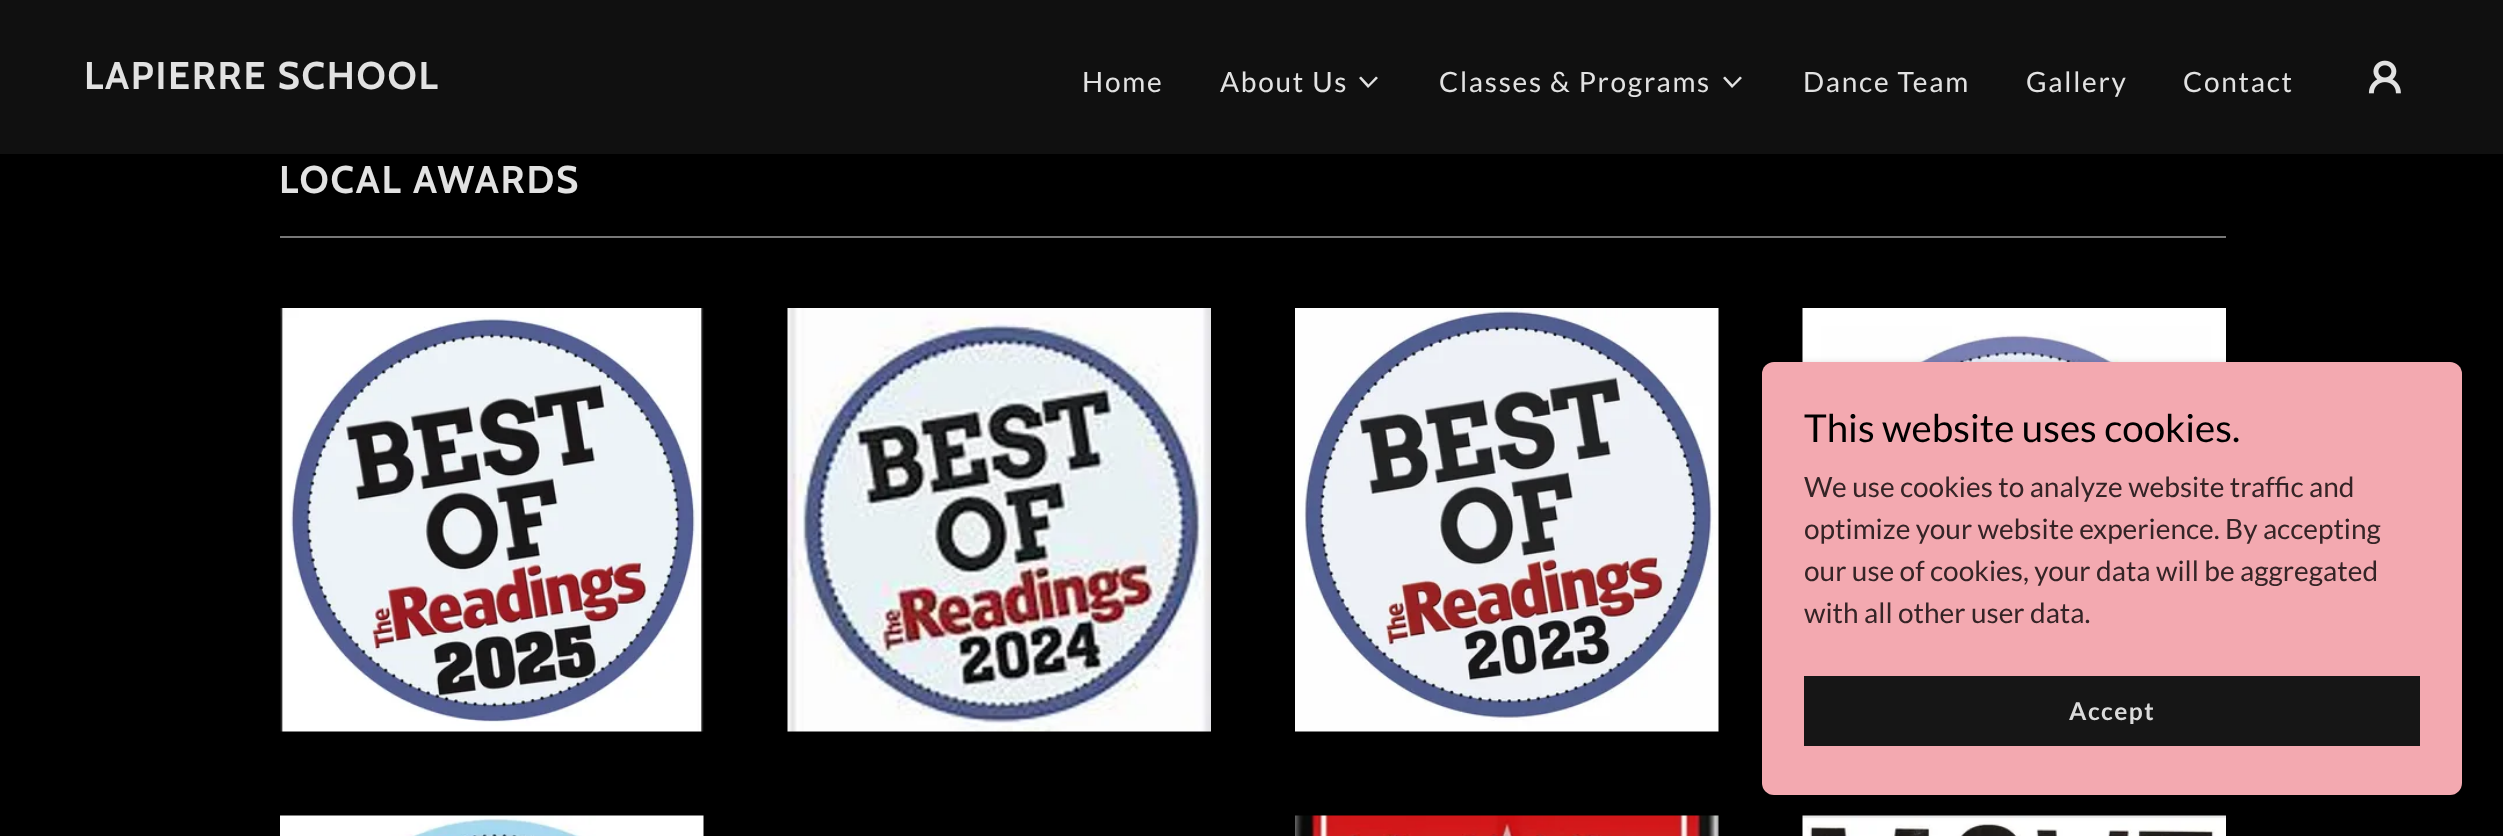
<!DOCTYPE html>
<meta charset="utf-8">
<style>body { margin: 0 } canvas { display: block }</style>
<canvas id="canvas" width="2503" height="836"></canvas>
<script type="module">
  const canvas = document.getElementById("canvas");
  const g = canvas.getContext("2d");
  g.miterLimit = 4;
  g.fontKerning = "normal";
  function drawText(s, x, y, [font, color]) {
    g.font = font;
    g.fillStyle = color;
    g.fillText(s, x, y);
  }
  function fillBox(x, y, w, h, color) {
    g.fillStyle = color;
    g.fillRect(x, y, w, h);
  }
  function fillRounded(x, y, w, h, r, color) {
    g.fillStyle = color;
    g.beginPath();
    g.roundRect(x, y, w, h, r);
    g.fill();
  }
  async function drawPicture(src, x, y, w, h) {
    const img = new Image();
    img.src = src;
    await img.decode();
    g.drawImage(img, x, y, w, h);
  }

  const s1 = ["bold 38.5px Cabin", "#E2E2E2"];
  const s2 = ["28px Lato", "#E2E2E2"];
  const s3 = ["38.5px Lato", "#000000"];
  const s4 = ["28px Lato", "#352426"];
  const s5 = ["bold 24.5px Lato", "#DBDBDB"];

  fillBox(0, 0, 2503, 836, "#000000");
  fillBox(0, 0, 2503, 154, "#101010");
  g.letterSpacing = "1.75px";
  drawText("LAPIERRE SCHOOL", 84, 89, s1);
  drawText("Home", 1082, 92, s2);
  drawText("About Us", 1220, 92, s2);
  g.beginPath();
  g.moveTo(1376, 76.5);
  g.lineTo(1368.5, 84.5);
  g.lineTo(1361, 76.5);
  g.lineTo(1359, 78);
  g.lineTo(1368, 88);
  g.lineTo(1378, 78);
  g.closePath();
  g.fill("evenodd");
  drawText("Classes & Programs", 1439, 92, s2);
  g.beginPath();
  g.moveTo(1740, 76.5);
  g.lineTo(1732.5, 84.5);
  g.lineTo(1725, 76.5);
  g.lineTo(1723, 78);
  g.lineTo(1732, 88);
  g.lineTo(1742, 78);
  g.closePath();
  g.fill("evenodd");
  drawText("Dance Team", 1803, 92, s2);
  drawText("Gallery", 2026, 92, s2);
  drawText("Contact", 2183, 92, s2);
  await drawPicture("pic1.png", 2368, 60, 33, 34);
  drawText("LOCAL AWARDS", 279, 193, s1);
  fillBox(280, 236, 1946, 2, "#777777");
  await drawPicture("pic2.png", 280, 308, 424, 424);
  await drawPicture("pic3.png", 787, 308, 424, 424);
  await drawPicture("pic4.png", 1295, 308, 424, 424);
  await drawPicture("pic5.png", 1802, 308, 424, 54);
  await drawPicture("pic6.png", 280, 815, 424, 21);
  await drawPicture("pic7.png", 1295, 815, 424, 21);
  await drawPicture("pic8.png", 1802, 815, 424, 21);
  g.fillStyle = "rgba(0, 0, 0, 0.3)";
  g.filter = "blur(5px)";
  g.beginPath();
  g.roundRect(1762, 366, 700, 432, 12);
  g.fill();
  g.filter = "none";
  fillRounded(1762, 362, 700, 433, 12, "#F3A9B0");
  g.letterSpacing = "0px";
  drawText("This website uses cookies.", 1804, 442, s3);
  drawText("We use cookies to analyze website traffic and", 1804, 497, s4);
  drawText("optimize your website experience. By accepting", 1804, 539, s4);
  drawText("our use of cookies, your data will be aggregated", 1804, 581, s4);
  drawText("with all other user data.", 1804, 623, s4);
  fillBox(1804, 676, 616, 70, "#161616");
  g.letterSpacing = "1.5px";
  drawText("Accept", 2069, 720, s5);
</script>
